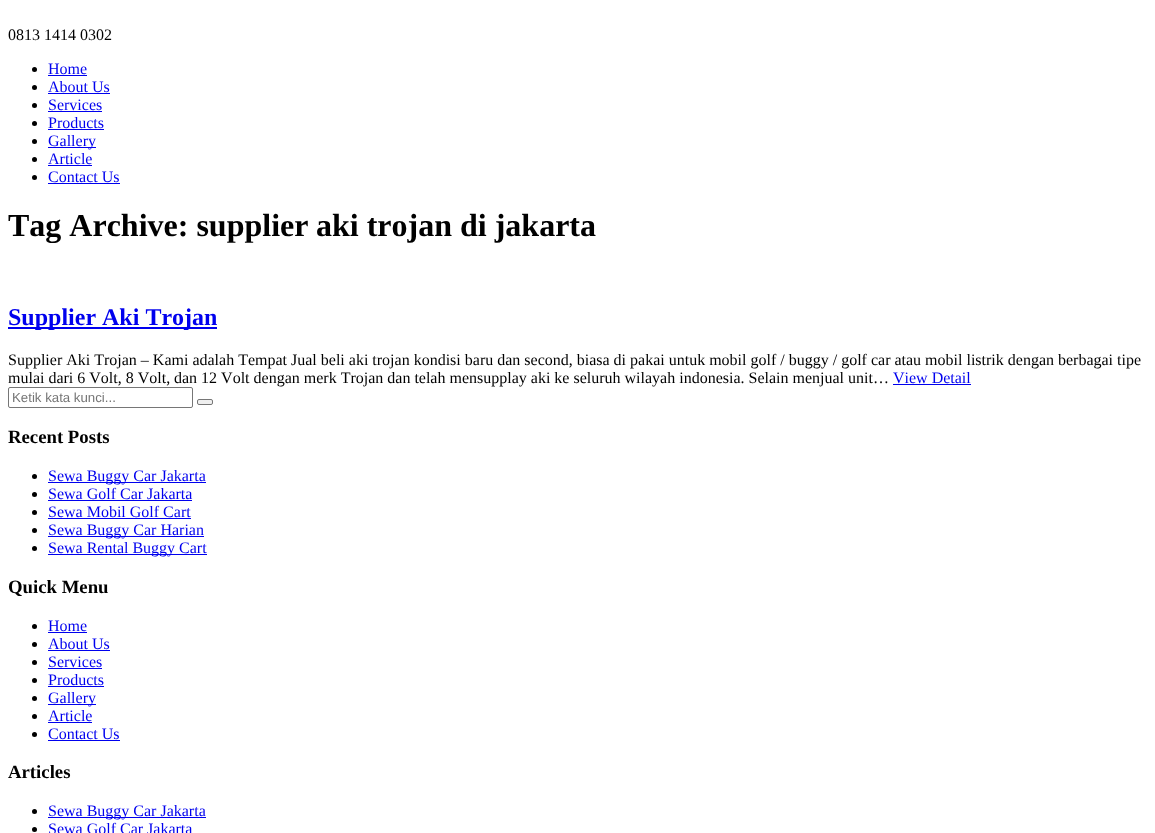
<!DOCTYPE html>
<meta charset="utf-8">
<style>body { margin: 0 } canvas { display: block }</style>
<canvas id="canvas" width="1155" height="833"></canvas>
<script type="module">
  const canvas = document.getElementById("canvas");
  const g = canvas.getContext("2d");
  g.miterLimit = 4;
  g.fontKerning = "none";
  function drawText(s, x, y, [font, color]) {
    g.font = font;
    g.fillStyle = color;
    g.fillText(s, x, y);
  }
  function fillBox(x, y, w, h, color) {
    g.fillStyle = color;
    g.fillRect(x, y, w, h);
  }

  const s1 = ["16px Liberation Serif", "#000000"];
  const s2 = ["16px Liberation Serif", "#0000EE"];
  const s3 = ["bold 32px Liberation Serif", "#000000"];
  const s4 = ["bold 24px Liberation Serif", "#0000EE"];
  const s5 = ["13.25px Liberation Sans", "#757575"];
  const s6 = ["bold 18.75px Liberation Serif", "#000000"];

  fillBox(0, 0, 1155, 833, "#FFFFFF");
  drawText("0813 1414 0302", 8, 40, s1);
  g.beginPath();
  g.arc(34.5, 69.5, 2.5, 0, Math.PI * 2);
  g.fill();
  drawText("Home", 48, 74, s2);
  fillBox(48, 75, 39, 1, "#0000EE");
  g.fillStyle = "#000000";
  g.beginPath();
  g.arc(34.5, 87.5, 2.5, 0, Math.PI * 2);
  g.fill();
  drawText("About Us", 48, 92, s2);
  fillBox(48, 93, 62, 1, "#0000EE");
  g.fillStyle = "#000000";
  g.beginPath();
  g.arc(34.5, 105.5, 2.5, 0, Math.PI * 2);
  g.fill();
  drawText("Services", 48, 110, s2);
  fillBox(48, 111, 54, 1, "#0000EE");
  g.fillStyle = "#000000";
  g.beginPath();
  g.arc(34.5, 123.5, 2.5, 0, Math.PI * 2);
  g.fill();
  drawText("Products", 48, 128, s2);
  fillBox(48, 129, 56, 1, "#0000EE");
  g.fillStyle = "#000000";
  g.beginPath();
  g.arc(34.5, 141.5, 2.5, 0, Math.PI * 2);
  g.fill();
  fillBox(48, 147, 48, 1, "#0000EE");
  drawText("Gallery", 48, 146, s2);
  g.fillStyle = "#000000";
  g.beginPath();
  g.arc(34.5, 159.5, 2.5, 0, Math.PI * 2);
  g.fill();
  drawText("Article", 48, 164, s2);
  fillBox(48, 165, 44, 1, "#0000EE");
  g.fillStyle = "#000000";
  g.beginPath();
  g.arc(34.5, 177.5, 2.5, 0, Math.PI * 2);
  g.fill();
  drawText("Contact Us", 48, 182, s2);
  fillBox(48, 183, 72, 1, "#0000EE");
  drawText("Tag Archive: supplier", 8, 236, s3);
  drawText("aki trojan di jakarta", 316, 236, s3);
  fillBox(8, 327, 209, 2, "#0000EE");
  drawText("Supplier Aki Trojan", 8, 325, s4);
  drawText("Supplier Aki Trojan – Kami adalah Tempat Jual beli aki trojan kondisi baru dan second, biasa di pakai untuk mobil golf / buggy / golf car atau mobil listrik dengan berbagai tipe", 8, 365, s1);
  drawText("mulai dari 6 Volt, 8 Volt,", 8, 383, s1);
  drawText("dan 12 Volt dengan merk Trojan dan telah mensupplay aki ke seluruh wilayah indonesia. Selain menjual unit…", 174, 383, s1);
  drawText("View Detail", 893, 383, s2);
  fillBox(893, 384, 78, 1, "#0000EE");
  g.beginPath();
  g.roundRect(8.5, 387.5, 184, 20, 1.5);
  g.strokeStyle = "#767676";
  g.stroke();
  drawText("Ketik kata kunci...", 12, 402, s5);
  g.fillStyle = "#EFEFEF";
  g.beginPath();
  g.roundRect(197.5, 399.5, 15, 5, 1.5);
  g.fill();
  g.stroke();
  drawText("Recent Posts", 8, 443, s6);
  g.beginPath();
  g.arc(34.5, 476.5, 2.5, 0, Math.PI * 2);
  g.fill();
  fillBox(48, 482, 158, 1, "#0000EE");
  drawText("Sewa Buggy Car Jakarta", 48, 481, s2);
  g.fillStyle = "#000000";
  g.beginPath();
  g.arc(34.5, 494.5, 2.5, 0, Math.PI * 2);
  g.fill();
  drawText("Sewa Golf Car Jakarta", 48, 499, s2);
  fillBox(48, 500, 144, 1, "#0000EE");
  g.fillStyle = "#000000";
  g.beginPath();
  g.arc(34.5, 512.5, 2.5, 0, Math.PI * 2);
  g.fill();
  drawText("Sewa Mobil Golf Cart", 48, 517, s2);
  fillBox(48, 518, 143, 1, "#0000EE");
  g.fillStyle = "#000000";
  g.beginPath();
  g.arc(34.5, 530.5, 2.5, 0, Math.PI * 2);
  g.fill();
  fillBox(48, 536, 156, 1, "#0000EE");
  drawText("Sewa Buggy Car Harian", 48, 535, s2);
  g.fillStyle = "#000000";
  g.beginPath();
  g.arc(34.5, 548.5, 2.5, 0, Math.PI * 2);
  g.fill();
  fillBox(48, 554, 159, 1, "#0000EE");
  drawText("Sewa Rental Buggy Cart", 48, 553, s2);
  drawText("Quick Menu", 8, 593, s6);
  g.beginPath();
  g.arc(34.5, 626.5, 2.5, 0, Math.PI * 2);
  g.fill();
  drawText("Home", 48, 631, s2);
  fillBox(48, 632, 39, 1, "#0000EE");
  g.fillStyle = "#000000";
  g.beginPath();
  g.arc(34.5, 644.5, 2.5, 0, Math.PI * 2);
  g.fill();
  drawText("About Us", 48, 649, s2);
  fillBox(48, 650, 62, 1, "#0000EE");
  g.fillStyle = "#000000";
  g.beginPath();
  g.arc(34.5, 662.5, 2.5, 0, Math.PI * 2);
  g.fill();
  drawText("Services", 48, 667, s2);
  fillBox(48, 668, 54, 1, "#0000EE");
  g.fillStyle = "#000000";
  g.beginPath();
  g.arc(34.5, 680.5, 2.5, 0, Math.PI * 2);
  g.fill();
  drawText("Products", 48, 685, s2);
  fillBox(48, 686, 56, 1, "#0000EE");
  g.fillStyle = "#000000";
  g.beginPath();
  g.arc(34.5, 698.5, 2.5, 0, Math.PI * 2);
  g.fill();
  fillBox(48, 704, 48, 1, "#0000EE");
  drawText("Gallery", 48, 703, s2);
  g.fillStyle = "#000000";
  g.beginPath();
  g.arc(34.5, 716.5, 2.5, 0, Math.PI * 2);
  g.fill();
  drawText("Article", 48, 721, s2);
  fillBox(48, 722, 44, 1, "#0000EE");
  g.fillStyle = "#000000";
  g.beginPath();
  g.arc(34.5, 734.5, 2.5, 0, Math.PI * 2);
  g.fill();
  drawText("Contact Us", 48, 739, s2);
  fillBox(48, 740, 72, 1, "#0000EE");
  drawText("Articles", 8, 778, s6);
  g.beginPath();
  g.arc(34.5, 811.5, 2.5, 0, Math.PI * 2);
  g.fill();
  fillBox(48, 817, 158, 1, "#0000EE");
  drawText("Sewa Buggy Car Jakarta", 48, 816, s2);
  g.fillStyle = "#000000";
  g.beginPath();
  g.arc(34.5, 829.5, 2.5, 0, Math.PI * 2);
  g.fill();
  drawText("Sewa Golf Car Jakarta", 48, 834, s2);
</script>
